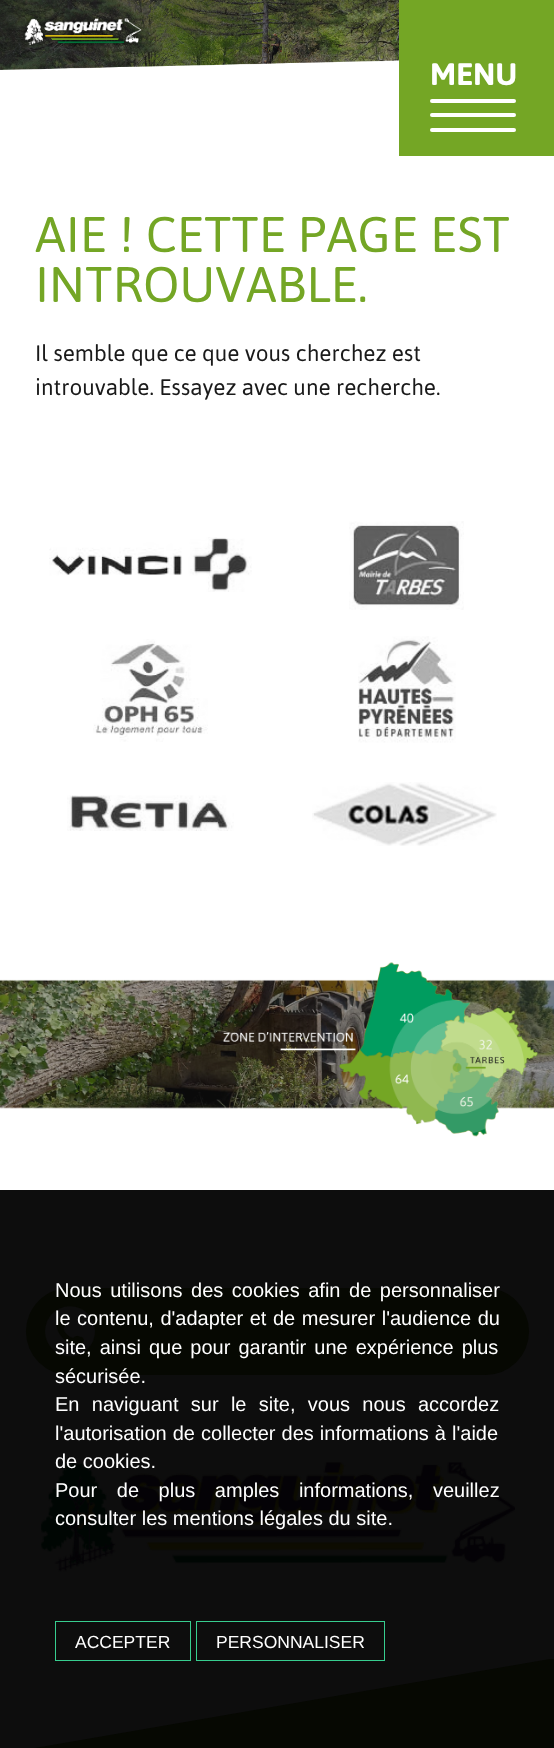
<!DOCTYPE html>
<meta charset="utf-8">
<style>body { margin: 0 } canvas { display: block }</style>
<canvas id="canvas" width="554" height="1748"></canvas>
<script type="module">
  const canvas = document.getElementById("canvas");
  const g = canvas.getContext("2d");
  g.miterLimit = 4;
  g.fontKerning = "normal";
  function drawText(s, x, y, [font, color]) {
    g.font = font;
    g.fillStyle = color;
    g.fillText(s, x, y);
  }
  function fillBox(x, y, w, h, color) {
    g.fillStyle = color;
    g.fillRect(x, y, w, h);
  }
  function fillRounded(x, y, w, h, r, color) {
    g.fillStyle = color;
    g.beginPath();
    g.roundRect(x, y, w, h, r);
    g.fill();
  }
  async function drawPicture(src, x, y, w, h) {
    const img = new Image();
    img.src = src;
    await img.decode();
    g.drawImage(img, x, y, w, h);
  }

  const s1 = ["bold 31px Asap", "#FFFFFF"];
  const s2 = ["50px Asap", "#74A625"];
  const s3 = ["22.5px Asap", "#1A1A1A"];
  const s4 = ["20px Liberation Sans", "#FFFFFF"];
  const s5 = ["17.5px Liberation Sans", "#FFFFFF"];

  fillBox(0, 0, 554, 1748, "#FFFFFF");
  fillBox(0, 1190, 554, 558, "#0D0D0D");
  await drawPicture("pic1.png", 0, 0, 399, 70);
  await drawPicture("pic2.png", 23, 17, 120, 29);
  fillBox(399, 0, 155, 156, "#74A625");
  drawText("MENU", 430, 85, s1);
  fillRounded(430, 99, 86, 4, 2, "#FFFFFF");
  fillRounded(430, 113, 86, 4, 2, "#FFFFFF");
  fillRounded(430, 128, 86, 4, 2, "#FFFFFF");
  drawText("AIE ! CETTE PAGE EST", 35, 252, s2);
  drawText("INTROUVABLE.", 35, 302, s2);
  drawText("Il semble que ce que vous cherchez est", 35, 361, s3);
  drawText("introuvable. Essayez avec une recherche.", 35, 395, s3);
  await drawPicture("pic3.png", 49, 537, 203, 55);
  await drawPicture("pic4.png", 349, 521, 115, 89);
  await drawPicture("pic5.png", 93, 639, 115, 103);
  await drawPicture("pic6.png", 358, 636, 98, 107);
  await drawPicture("pic7.png", 67, 795, 167, 36);
  await drawPicture("pic8.png", 312, 782, 185, 64);
  await drawPicture("pic9.png", 0, 962, 554, 175);
  fillRounded(26, 1288, 503, 87, 43.5, "#060802");
  await drawPicture("pic10.png", 45, 1306, 50, 51);
  await drawPicture("pic11.png", 41, 1462, 474, 110);
  g.beginPath();
  g.moveTo(0, 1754);
  g.lineTo(0, 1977);
  g.lineTo(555, 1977);
  g.lineTo(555, 1659);
  g.lineTo(550, 1659);
  g.closePath();
  g.fill();
  g.wordSpacing = "3px";
  drawText("Nous utilisons des cookies afin de personnaliser", 55, 1297, s4);
  g.wordSpacing = "1px";
  drawText("le contenu, d'adapter et de mesurer l'audience du", 55, 1325, s4);
  g.wordSpacing = "2.5px";
  drawText("site, ainsi que pour garantir une expérience plus", 55, 1354, s4);
  g.wordSpacing = "0px";
  drawText("sécurisée.", 55, 1383, s4);
  g.wordSpacing = "6.75px";
  drawText("En naviguant sur le site, vous nous accordez", 55, 1411, s4);
  g.wordSpacing = "0.5px";
  drawText("l'autorisation de collecter des informations à l'aide", 55, 1440, s4);
  g.wordSpacing = "0px";
  drawText("de cookies.", 55, 1468, s4);
  g.wordSpacing = "14px";
  drawText("Pour de plus amples informations, veuillez", 55, 1497, s4);
  g.wordSpacing = "0px";
  drawText("consulter les mentions légales du site.", 55, 1525, s4);
  g.strokeStyle = "#37CD8F";
  g.strokeRect(55.5, 1621.5, 135, 39);
  drawText("ACCEPTER", 75, 1648, s5);
  g.strokeRect(196.5, 1621.5, 188, 39);
  drawText("PERSONNALISER", 216, 1648, s5);
</script>
